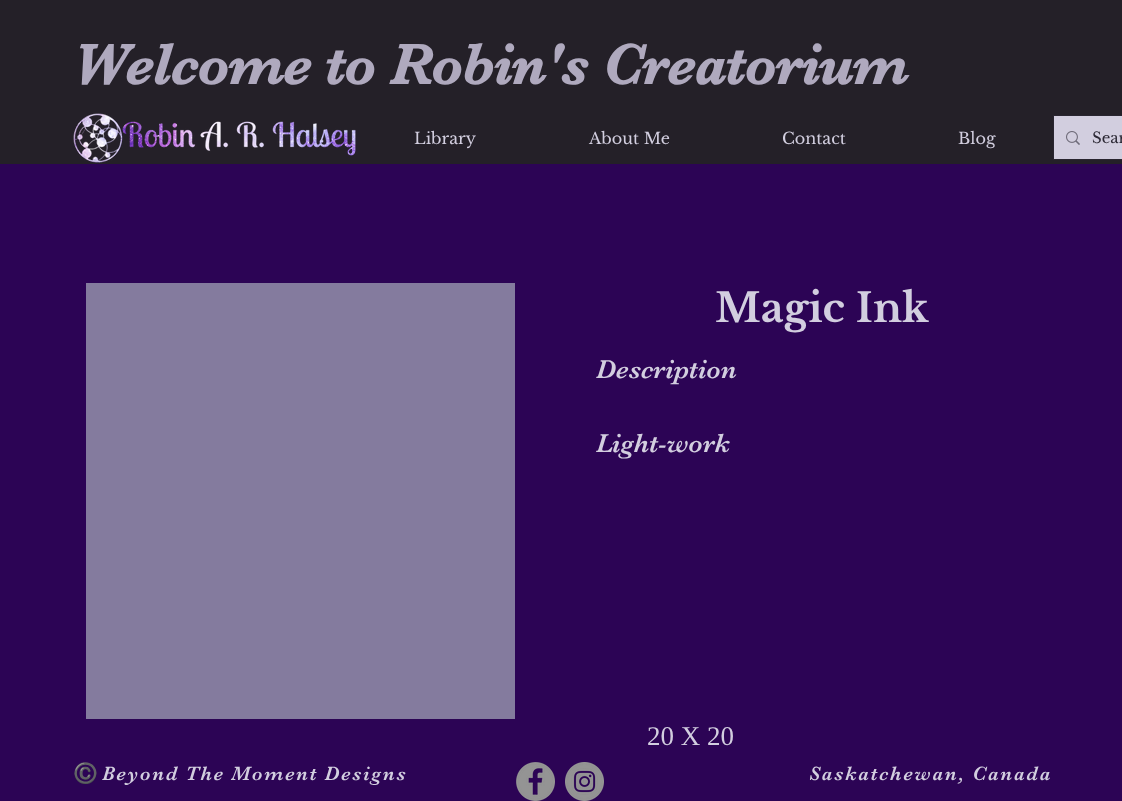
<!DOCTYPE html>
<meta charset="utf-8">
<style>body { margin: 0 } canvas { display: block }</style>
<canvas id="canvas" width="1122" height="801"></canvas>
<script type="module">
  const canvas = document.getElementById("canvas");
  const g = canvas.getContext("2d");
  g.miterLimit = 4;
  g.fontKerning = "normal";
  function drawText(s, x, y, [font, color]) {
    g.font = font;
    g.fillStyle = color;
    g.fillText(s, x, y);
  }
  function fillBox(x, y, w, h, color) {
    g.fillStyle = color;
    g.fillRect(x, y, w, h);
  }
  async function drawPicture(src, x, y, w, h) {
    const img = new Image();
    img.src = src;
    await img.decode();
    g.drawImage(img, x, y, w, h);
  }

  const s1 = ["bold 58px 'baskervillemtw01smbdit'", "#AFA9BE"];
  const s2 = ["16px Libre Baskerville", "#D2CEDF"];
  const s3 = ["15px Libre Baskerville", "#2C2935"];
  const s4 = ["bold 40px Libre Baskerville", "#D2CEDF"];
  const s5 = ["27px 'baskervillemtw01smbdit'", "#D2CEDF"];
  const s6 = ["27px Liberation Serif", "#D2CEDF"];
  const s7 = ["20px Noto Color Emoji", "#D2CEDF"];
  const s8 = ["20px 'baskervillemtw01smbdit'", "#D2CEDF"];

  fillBox(0, 0, 1122, 801, "#2C0455");
  fillBox(0, 0, 1122, 164, "#242028");
  drawText("Welcome to Robin's Creatorium", 73, 84, s1);
  await drawPicture("pic1.png", 73, 113, 283, 50);
  drawText("Library", 414, 144, s2);
  drawText("About Me", 589, 144, s2);
  drawText("Contact", 782, 144, s2);
  drawText("Blog", 958, 144, s2);
  g.strokeStyle = "#292530";
  g.strokeRect(1053.5, 115.5, 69, 44);
  fillBox(1054, 116, 68, 43, "#D2CEDF");
  await drawPicture("pic2.png", 1066, 131, 14, 14);
  drawText("Sear", 1092, 143, s3);
  fillBox(86, 283, 429, 436, "#847B9E");
  drawText("Magic Ink", 715, 322, s4);
  drawText("Description", 596, 378, s5);
  drawText("Light-work", 596, 452, s5);
  drawText("20 X 20", 647, 745, s6);
  g.letterSpacing = "1.8px";
  drawText("©️", 73, 780, s7);
  g.wordSpacing = "-0.5px";
  drawText("Beyond The Moment Designs", 102, 780, s8);
  await drawPicture("pic3.png", 516, 762, 39, 39);
  await drawPicture("pic4.png", 565, 762, 39, 39);
  g.wordSpacing = "0px";
  drawText("Saskatchewan, Canada", 809, 780, s8);
</script>
